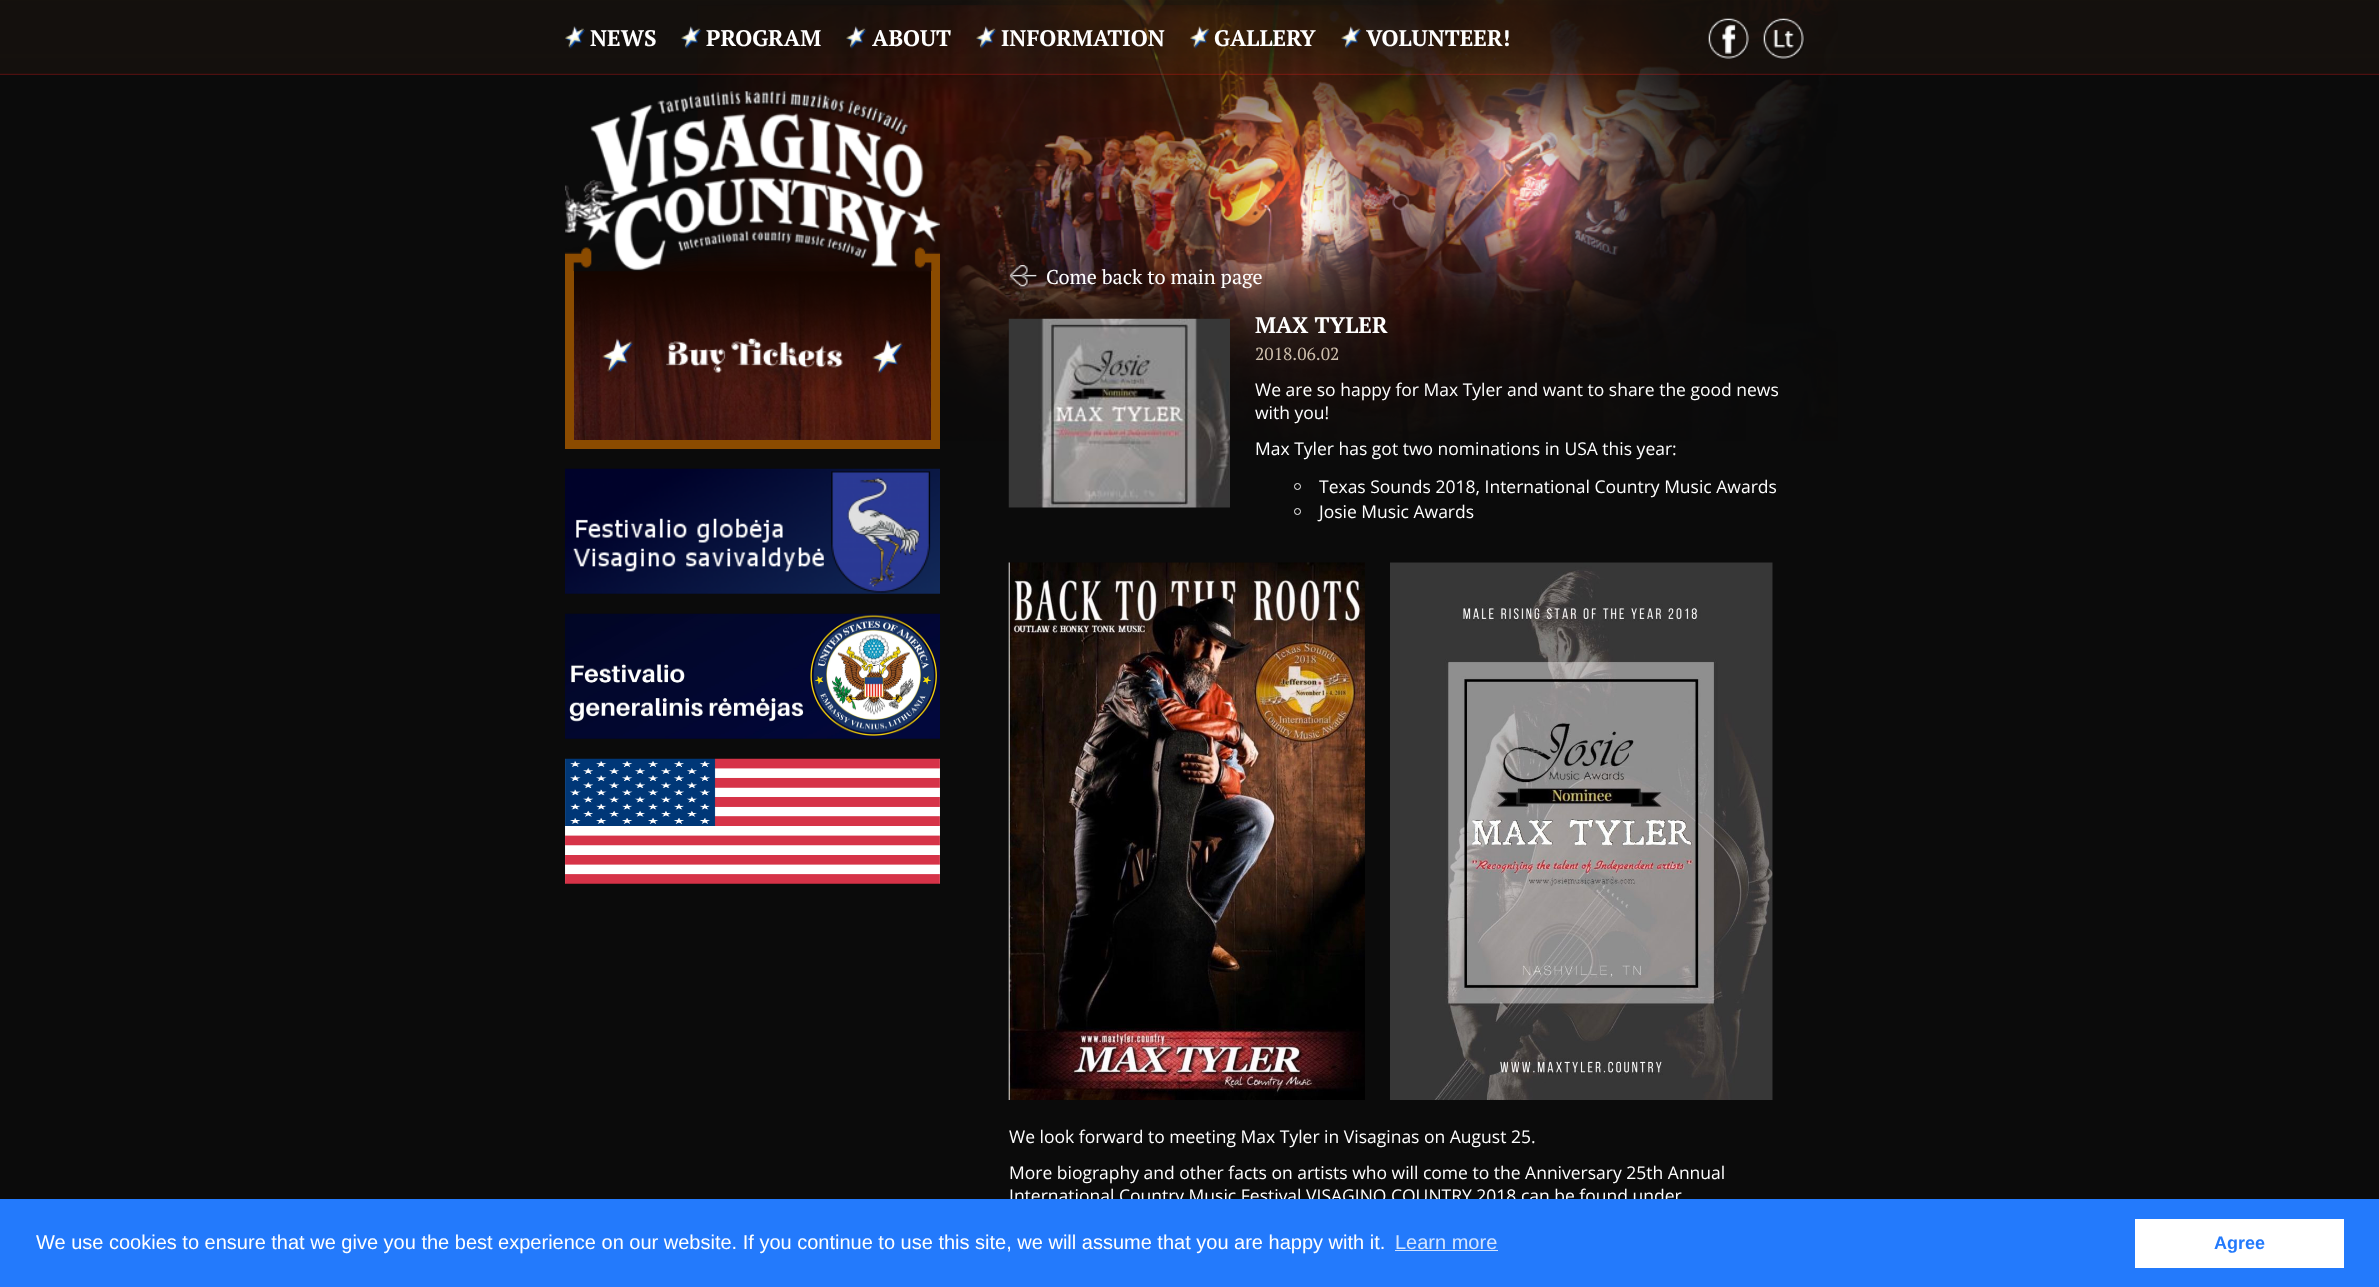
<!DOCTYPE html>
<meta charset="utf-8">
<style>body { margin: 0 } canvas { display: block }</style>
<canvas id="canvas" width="2379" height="1287"></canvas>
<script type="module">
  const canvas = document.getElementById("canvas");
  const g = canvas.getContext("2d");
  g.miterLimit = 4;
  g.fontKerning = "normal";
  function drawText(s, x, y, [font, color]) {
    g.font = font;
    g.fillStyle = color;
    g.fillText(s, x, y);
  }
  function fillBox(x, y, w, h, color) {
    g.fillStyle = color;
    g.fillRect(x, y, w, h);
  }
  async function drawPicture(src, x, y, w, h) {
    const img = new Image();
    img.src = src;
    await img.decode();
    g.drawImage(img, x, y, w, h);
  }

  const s1 = ["bold 22.5px PT Serif", "#FFFFFF"];
  const s2 = ["20px PT Serif", "#FFFFFF"];
  const s3 = ["17.5px PT Serif", "#CDBEAC"];
  const s4 = ["17.5px Open Sans", "#FFFFFF"];
  const s5 = ["20px Liberation Sans", "#FFFFFF"];
  const s6 = ["20px Liberation Sans", "#D3E4FE"];
  const s7 = ["bold 18px Liberation Sans", "#237AFC"];

  fillBox(0, 0, 2379, 1287, "#0B0B0B");
  await drawPicture("pic1.png", 697, 0, 1141, 441);
  await drawPicture("pic2.png", 0, 0, 2379, 75);
  await drawPicture("pic3.png", 565, 26, 20, 23);
  drawText("NEWS", 590, 46, s1);
  await drawPicture("pic4.png", 681, 26, 21, 23);
  drawText("PROGRAM", 706, 46, s1);
  await drawPicture("pic5.png", 846, 26, 21, 23);
  drawText("ABOUT", 872, 46, s1);
  await drawPicture("pic6.png", 976, 26, 21, 23);
  drawText("INFORMATION", 1001, 46, s1);
  await drawPicture("pic7.png", 1190, 26, 20, 23);
  drawText("GALLERY", 1214, 46, s1);
  await drawPicture("pic8.png", 1341, 26, 21, 23);
  drawText("VOLUNTEER!", 1366, 46, s1);
  await drawPicture("pic9.png", 1708, 18, 41, 41);
  await drawPicture("pic10.png", 1763, 18, 42, 42);
  await drawPicture("pic11.png", 565, 91, 375, 181);
  await drawPicture("pic12.png", 574, 271, 357, 169);
  fillBox(931, 271, 9, 169, "#8B4B00");
  fillBox(574, 440, 366, 9, "#8B4B00");
  fillBox(565, 271, 9, 178, "#8B4B00");
  await drawPicture("pic13.png", 602, 338, 301, 36);
  await drawPicture("pic14.png", 565, 468, 375, 126);
  await drawPicture("pic15.png", 565, 613, 375, 126);
  await drawPicture("pic16.png", 565, 758, 375, 126);
  await drawPicture("pic17.png", 1009, 265, 29, 23);
  drawText("Come back to main page", 1046, 284, s2);
  await drawPicture("pic18.png", 1008, 318, 222, 190);
  drawText("MAX TYLER", 1255, 333, s1);
  drawText("2018.06.02", 1255, 360, s3);
  drawText("We are so happy for Max Tyler and want to share the good news", 1255, 396, s4);
  drawText("with you!", 1255, 419, s4);
  drawText("Max Tyler has got two nominations in USA this year:", 1255, 455, s4);
  g.beginPath();
  g.arc(1297.5, 486.5, 3, 0, Math.PI * 2);
  g.strokeStyle = "#FFFFFF";
  g.stroke();
  drawText("Texas Sounds 2018, International Country Music Awards", 1319, 493, s4);
  g.beginPath();
  g.arc(1297.5, 511.5, 3, 0, Math.PI * 2);
  g.stroke();
  drawText("Josie Music Awards", 1319, 518, s4);
  await drawPicture("pic19.png", 1008, 562, 357, 538);
  await drawPicture("pic20.png", 1390, 562, 383, 538);
  drawText("We look forward to meeting Max Tyler in Visaginas on August 25.", 1009, 1143, s4);
  drawText("More biography and other facts on artists who will come to the Anniversary 25th Annual", 1009, 1179, s4);
  drawText("International Country Music Festival VISAGINO COUNTRY 2018 can be found under", 1009, 1202, s4);
  fillBox(0, 1199, 2379, 88, "#237AFC");
  drawText("We use cookies to ensure that we give you the best experience on our website. If you continue to use this site, we will assume that you are happy with it.", 36, 1249, s5);
  drawText("Learn more", 1395, 1249, s6);
  fillBox(1395, 1250, 103, 1, "#D3E4FE");
  fillBox(2135, 1219, 209, 49, "#FFFFFF");
  drawText("Agree", 2214, 1249, s7);
</script>
